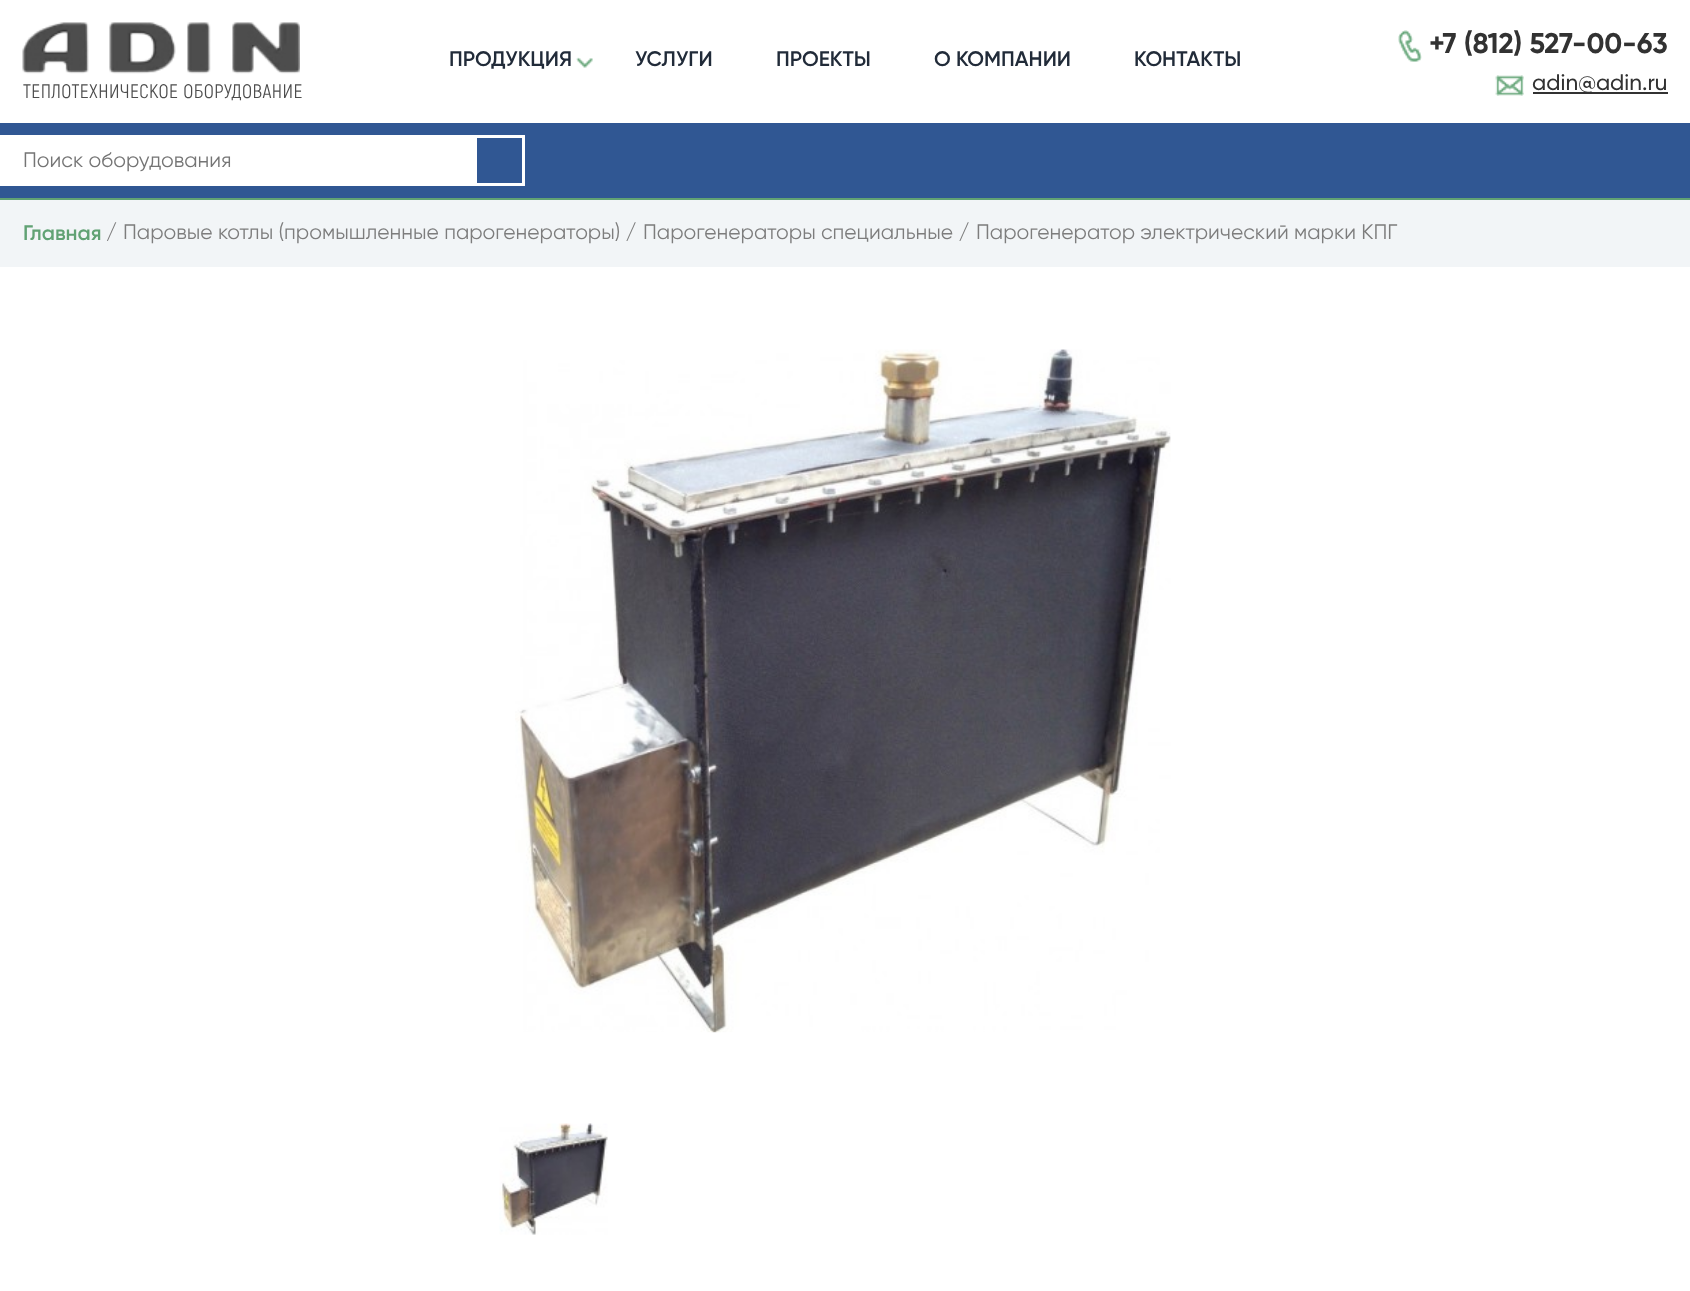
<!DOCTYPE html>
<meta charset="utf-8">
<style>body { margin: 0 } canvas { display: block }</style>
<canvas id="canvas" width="1690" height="1291"></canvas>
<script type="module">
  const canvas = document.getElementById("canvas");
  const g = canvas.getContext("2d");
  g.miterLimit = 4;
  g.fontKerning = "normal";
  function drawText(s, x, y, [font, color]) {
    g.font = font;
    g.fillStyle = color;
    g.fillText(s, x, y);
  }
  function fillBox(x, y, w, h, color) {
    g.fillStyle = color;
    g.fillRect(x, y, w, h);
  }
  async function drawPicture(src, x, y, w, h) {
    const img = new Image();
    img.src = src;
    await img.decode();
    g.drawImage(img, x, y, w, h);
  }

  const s1 = ["600 21px Gilroy", "#212B39"];
  const s2 = ["bold 28.5px Gilroy", "#323232"];
  const s3 = ["500 22.5px Gilroy", "#323232"];
  const s4 = ["19.5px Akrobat", "#4D4D4D"];
  const s5 = ["21px Gilroy", "#757575"];
  const s6 = ["600 21px Gilroy", "#61A274"];
  const s7 = ["21px Gilroy", "#7D7D7D"];

  fillBox(0, 0, 1690, 1291, "#FFFFFF");
  drawText("ПРОДУКЦИЯ", 449, 66, s1);
  await drawPicture("pic1.png", 576, 57, 17, 11);
  drawText("УСЛУГИ", 635, 66, s1);
  drawText("ПРОЕКТЫ", 776, 66, s1);
  drawText("О КОМПАНИИ", 934, 66, s1);
  drawText("КОНТАКТЫ", 1134, 66, s1);
  await drawPicture("pic2.png", 1398, 30, 24, 32);
  drawText("+7 (812) 527-00-63", 1429, 53, s2);
  await drawPicture("pic3.png", 1495, 75, 29, 21);
  fillBox(1533, 92, 135, 2, "#323232");
  drawText("adin@adin.ru", 1532, 90, s3);
  await drawPicture("pic4.png", 22, 22, 278, 52);
  g.letterSpacing = "0.45px";
  drawText("ТЕПЛОТЕХНИЧЕСКОЕ ОБОРУДОВАНИЕ", 23, 98, s4);
  fillBox(0, 123, 1690, 75, "#305793");
  fillBox(0, 198, 1690, 2, "#61A274");
  fillBox(0, 135, 474, 51, "#FFFFFF");
  g.letterSpacing = "0px";
  drawText("Поиск оборудования", 23, 167, s5);
  g.strokeStyle = "#FFFFFF";
  g.lineWidth = 3;
  g.strokeRect(475.5, 136.5, 48, 48);
  fillBox(0, 200, 1690, 67, "#F2F5F7");
  drawText("Главная", 23, 240, s6);
  drawText("/", 106, 239, s7);
  drawText("Паровые котлы (промышленные парогенераторы) /", 123, 239, s7);
  drawText("Парогенераторы специальные /", 643, 239, s7);
  drawText("Парогенератор электрический марки КПГ", 976, 239, s7);
  await drawPicture("pic5.png", 515, 349, 656, 684);
  await drawPicture("pic6.png", 499, 1123, 109, 112);
</script>
